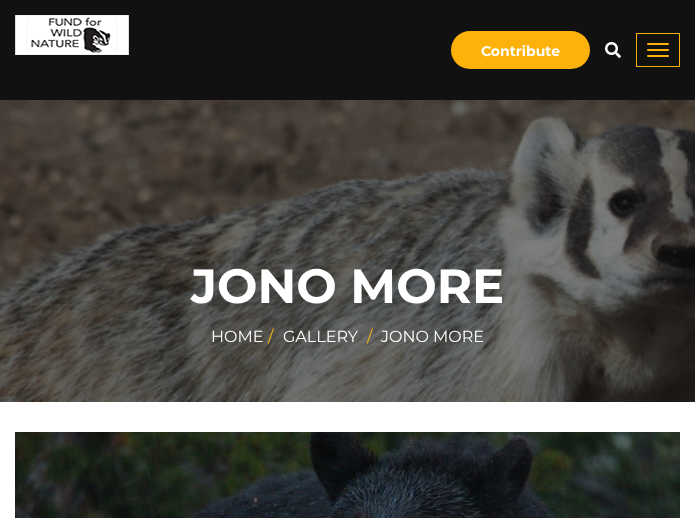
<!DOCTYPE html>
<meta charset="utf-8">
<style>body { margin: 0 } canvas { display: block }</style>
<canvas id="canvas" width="695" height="518"></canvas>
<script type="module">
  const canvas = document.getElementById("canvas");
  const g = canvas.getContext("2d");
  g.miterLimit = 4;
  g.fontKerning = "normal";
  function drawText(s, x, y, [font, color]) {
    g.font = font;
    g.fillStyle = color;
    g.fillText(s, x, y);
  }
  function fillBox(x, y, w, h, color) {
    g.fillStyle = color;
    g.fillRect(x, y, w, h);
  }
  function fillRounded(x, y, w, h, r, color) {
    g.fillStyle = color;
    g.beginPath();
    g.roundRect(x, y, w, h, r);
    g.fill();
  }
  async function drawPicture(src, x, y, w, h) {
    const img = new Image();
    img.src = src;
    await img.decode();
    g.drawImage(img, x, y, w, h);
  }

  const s1 = ["bold 14px Montserrat", "#FFFFFF"];
  const s2 = ["bold 48px Montserrat", "#FFFFFF"];
  const s3 = ["100 16px Montserrat", "#FFFFFF"];
  const s4 = ["100 16px Montserrat", "#FCB20B"];

  fillBox(0, 0, 695, 518, "#FFFFFF");
  await drawPicture("pic1.png", 0, 100, 695, 302);
  fillBox(0, 0, 695, 100, "#111111");
  await drawPicture("pic2.png", 15, 15, 114, 40);
  fillRounded(451, 31, 139, 38, 19, "#FCB20B");
  drawText("Contribute", 481, 56, s1);
  await drawPicture("pic3.png", 605, 42, 16, 16);
  g.strokeStyle = "#FCB20B";
  g.strokeRect(636.5, 33.5, 43, 33);
  fillRounded(647, 43, 22, 2, 1, "#FCB20B");
  fillRounded(647, 49, 22, 2, 1, "#FCB20B");
  fillRounded(647, 55, 22, 2, 1, "#FCB20B");
  drawText("JONO MORE", 191, 303, s2);
  drawText("HOME", 211, 342, s3);
  drawText("/", 268, 342, s4);
  drawText("GALLERY", 283, 342, s3);
  drawText("/", 367, 342, s4);
  drawText("JONO MORE", 381, 342, s3);
  await drawPicture("pic4.png", 15, 432, 665, 86);
</script>
